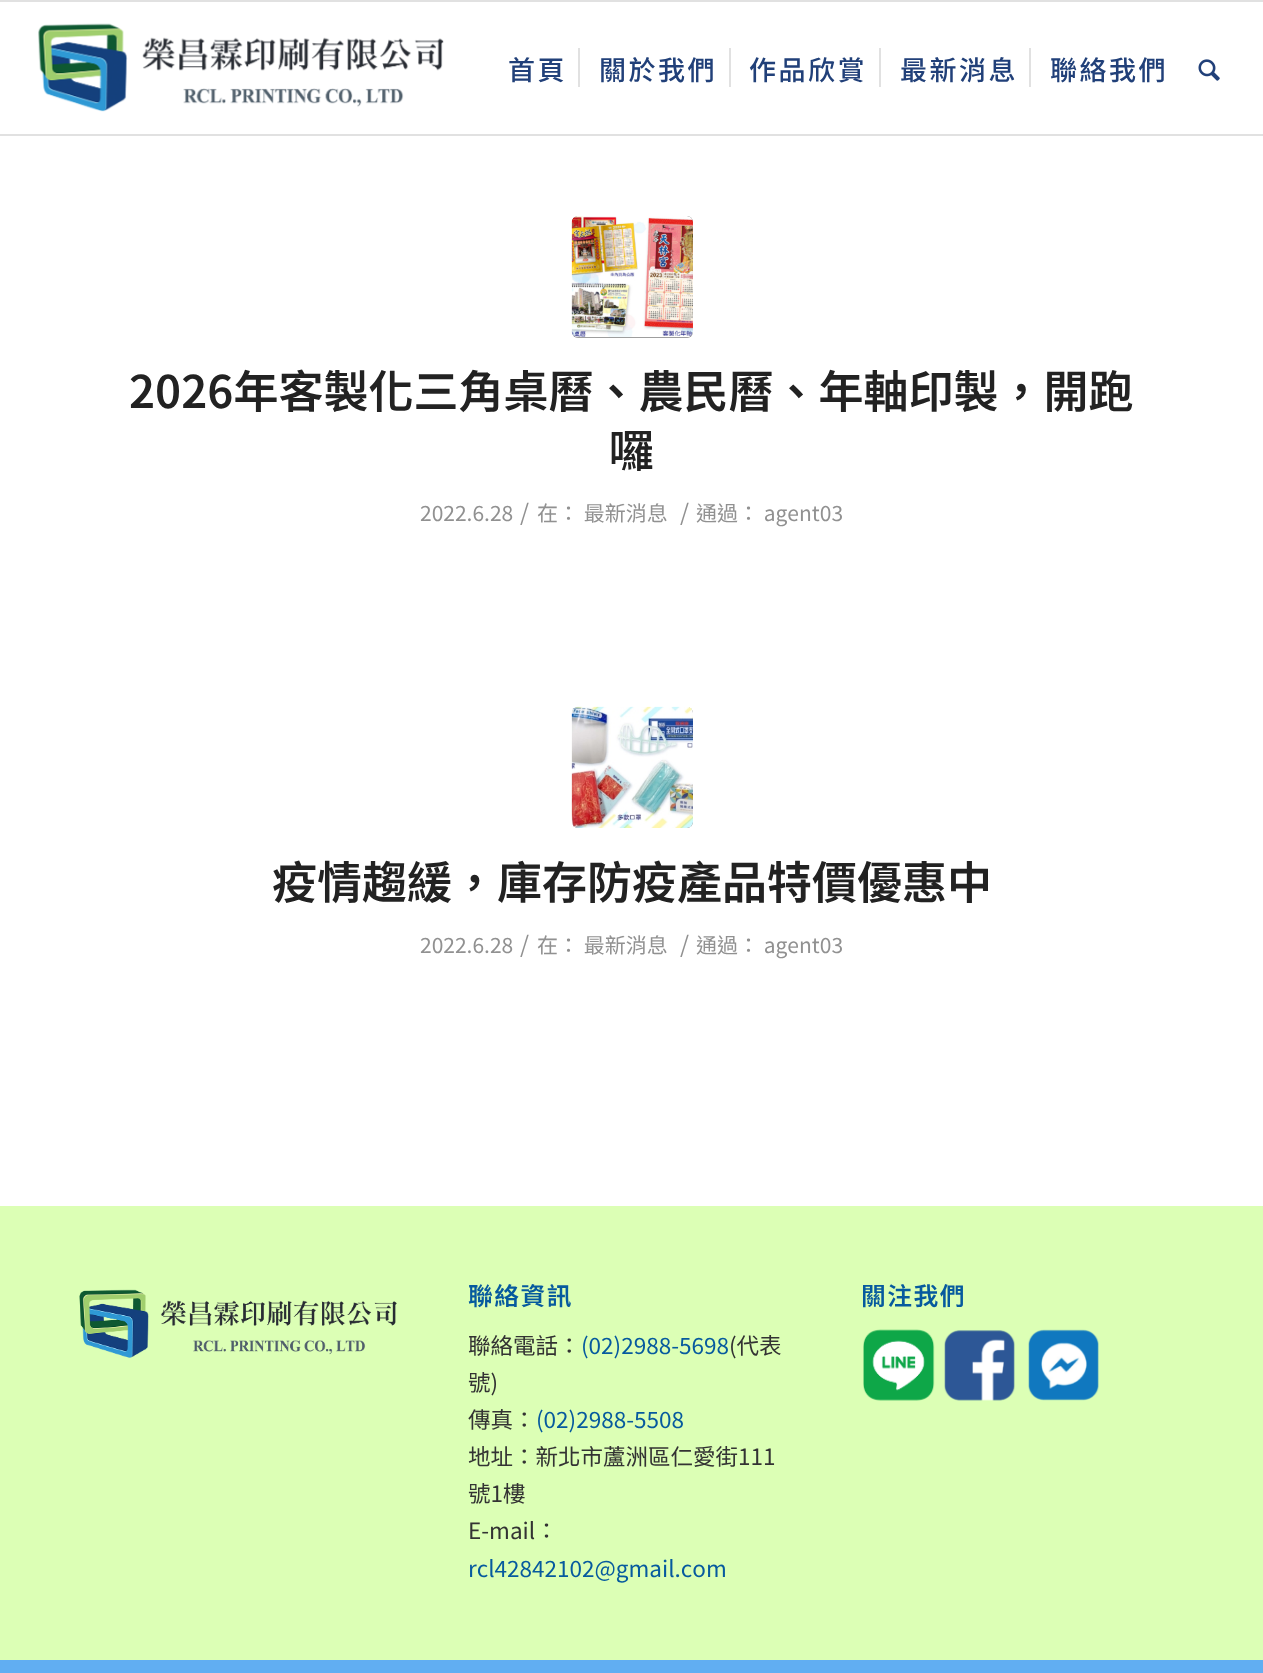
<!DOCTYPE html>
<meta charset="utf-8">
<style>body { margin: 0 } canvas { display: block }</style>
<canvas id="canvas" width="1263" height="1673"></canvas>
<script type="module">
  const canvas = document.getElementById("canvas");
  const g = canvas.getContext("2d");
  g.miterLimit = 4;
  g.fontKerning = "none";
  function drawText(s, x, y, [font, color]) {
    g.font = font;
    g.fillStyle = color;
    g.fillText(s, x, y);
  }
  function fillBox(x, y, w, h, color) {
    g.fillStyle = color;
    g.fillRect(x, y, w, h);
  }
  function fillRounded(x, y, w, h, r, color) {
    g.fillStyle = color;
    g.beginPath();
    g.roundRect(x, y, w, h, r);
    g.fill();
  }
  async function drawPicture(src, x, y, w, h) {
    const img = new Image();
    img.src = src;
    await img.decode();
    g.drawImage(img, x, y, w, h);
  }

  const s1 = ["500 27px Noto Sans TC", "#214079"];
  const s2 = ["600 45px Noto Sans TC", "#222222"];
  const s3 = ["21px Noto Sans TC", "#919191"];
  const s4 = ["23px Noto Sans TC", "#919191"];
  const s5 = ["600 24.75px Noto Sans TC", "#065A9E"];
  const s6 = ["22.5px Noto Sans TC", "#333333"];
  const s7 = ["22.5px Noto Sans TC", "#065A9E"];

  fillBox(0, 0, 1263, 1673, "#FFFFFF");
  fillBox(0, 0, 1263, 2, "#E1E1E1");
  fillBox(0, 134, 1263, 2, "#E1E1E1");
  await drawPicture("pic1.png", 38, 23, 406, 89);
  g.letterSpacing = "2.5px";
  drawText("首頁", 508, 80, s1);
  drawText("關於我們", 599, 80, s1);
  fillBox(578, 48, 2, 39, "#E1E1E1");
  drawText("作品欣賞", 749, 80, s1);
  fillBox(729, 48, 2, 39, "#E1E1E1");
  drawText("最新消息", 900, 80, s1);
  fillBox(879, 48, 2, 39, "#E1E1E1");
  drawText("聯絡我們", 1050, 80, s1);
  fillBox(1029, 48, 2, 39, "#E1E1E1");
  await drawPicture("pic2.png", 1198, 59, 22, 22);
  fillRounded(572, 216, 121, 122, 6, "#919191");
  await drawPicture("pic3.png", 571, 216, 122, 122);
  g.letterSpacing = "0px";
  drawText("2026年客製化三角桌曆、農民曆、年軸印製，開跑", 129, 408, s2);
  drawText("囉", 609, 467, s2);
  drawText("2022.6.28", 420, 521, s3);
  drawText("/", 520, 521, s4);
  drawText("在： 最新消息", 537, 521, s3);
  drawText("/", 680, 521, s4);
  drawText("通過： agent03", 696, 521, s3);
  fillRounded(572, 707, 121, 121, 6, "#919191");
  await drawPicture("pic4.png", 571, 706, 122, 122);
  drawText("疫情趨緩，庫存防疫產品特價優惠中", 272, 899, s2);
  drawText("2022.6.28", 420, 953, s3);
  drawText("/", 520, 953, s4);
  drawText("在： 最新消息", 537, 953, s3);
  drawText("/", 680, 953, s4);
  drawText("通過： agent03", 696, 953, s3);
  fillBox(0, 1206, 1263, 454, "#DCFFB5");
  await drawPicture("pic5.png", 79, 1289, 318, 69);
  g.letterSpacing = "1.5px";
  drawText("聯絡資訊", 468, 1305, s5);
  g.letterSpacing = "0px";
  drawText("聯絡電話：", 468, 1354, s6);
  drawText("(02)2988-5698", 581, 1354, s7);
  drawText("(代表", 729, 1354, s6);
  drawText("號)", 468, 1391, s6);
  drawText("傳真：", 468, 1428, s6);
  drawText("(02)2988-5508", 536, 1428, s7);
  drawText("地址：新北市蘆洲區仁愛街111", 468, 1465, s6);
  drawText("號1樓", 468, 1502, s6);
  drawText("E-mail：", 468, 1539, s6);
  drawText("rcl42842102@gmail.com", 468, 1577, s7);
  g.letterSpacing = "1.5px";
  drawText("關注我們", 861, 1305, s5);
  await drawPicture("pic6.png", 863, 1329, 72, 72);
  await drawPicture("pic7.png", 944, 1330, 71, 71);
  await drawPicture("pic8.png", 1028, 1329, 71, 72);
  fillBox(0, 1660, 1263, 13, "#61AEF2");
</script>
